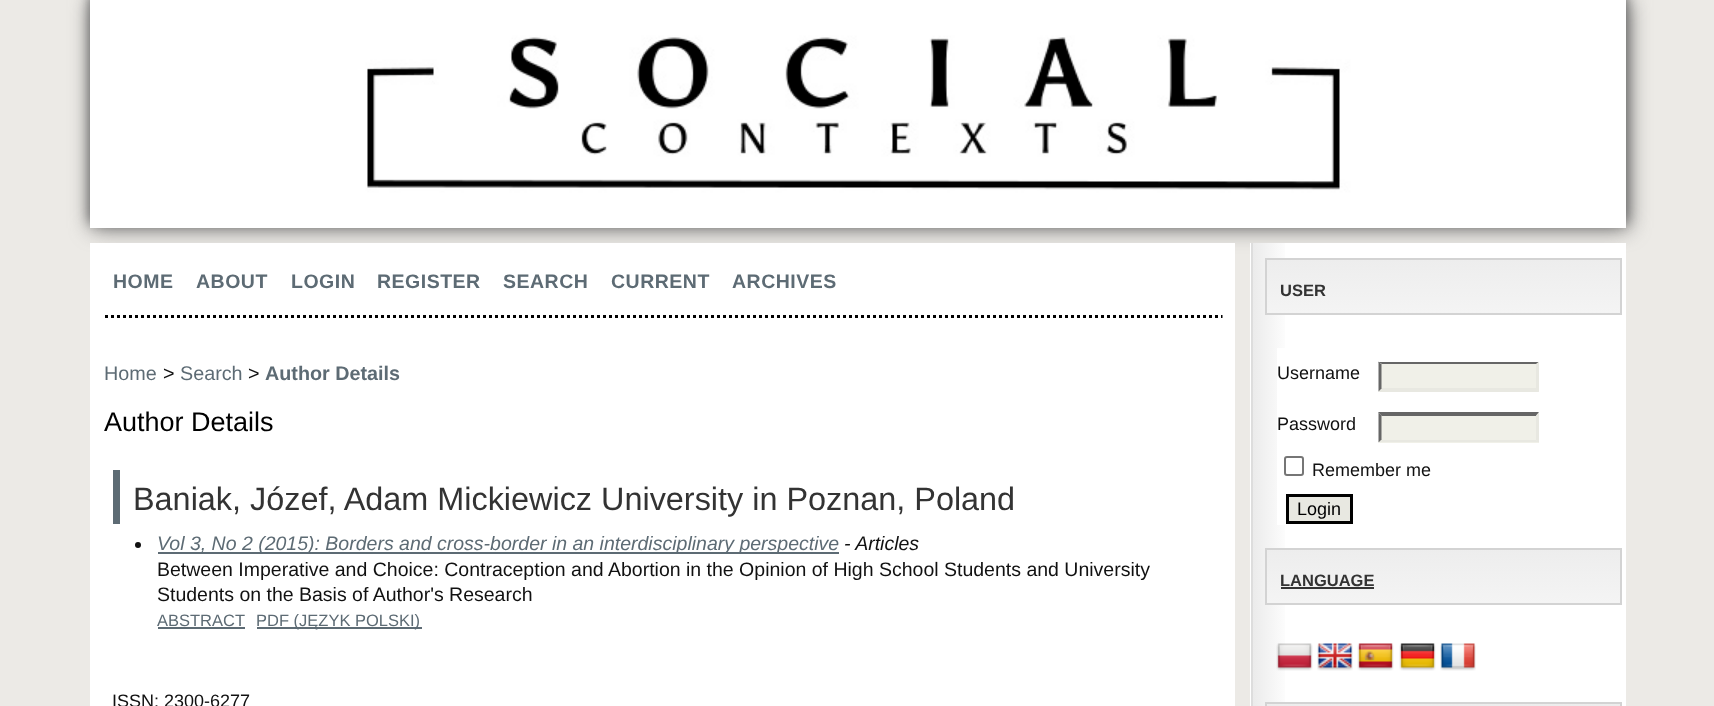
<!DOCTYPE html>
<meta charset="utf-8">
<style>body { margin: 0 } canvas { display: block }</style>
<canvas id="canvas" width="1714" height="706"></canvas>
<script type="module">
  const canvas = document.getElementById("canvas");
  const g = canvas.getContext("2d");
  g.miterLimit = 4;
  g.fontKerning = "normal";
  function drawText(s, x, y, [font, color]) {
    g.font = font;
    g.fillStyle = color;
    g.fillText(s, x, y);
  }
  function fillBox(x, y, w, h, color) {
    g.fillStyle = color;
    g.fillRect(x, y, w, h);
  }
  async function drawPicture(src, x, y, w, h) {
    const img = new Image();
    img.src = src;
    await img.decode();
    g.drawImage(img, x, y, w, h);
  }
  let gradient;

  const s1 = ["bold 19.5px Liberation Sans", "#5D6B74"];
  const s2 = ["19.75px Liberation Sans", "#5D6B74"];
  const s3 = ["19.75px Liberation Sans", "#111111"];
  const s4 = ["bold 19.75px Liberation Sans", "#5D6B74"];
  const s5 = ["27px Liberation Sans", "#000000"];
  const s6 = ["32.4px Liberation Sans", "#333333"];
  const s7 = ["italic 19.5px Liberation Sans", "#5D6B74"];
  const s8 = ["italic 19.5px Liberation Sans", "#111111"];
  const s9 = ["19.5px Liberation Sans", "#111111"];
  const s10 = ["16.5px Liberation Sans", "#5D6B74"];
  const s11 = ["18px Liberation Sans", "#111111"];
  const s12 = ["bold 16.5px Liberation Sans", "#333333"];
  const s13 = ["18px Liberation Sans", "#000000"];

  fillBox(0, 0, 1714, 706, "#ECEAE6");
  g.fillStyle = "#606060";
  g.filter = "blur(10.5px)";
  g.beginPath();
  g.rect(92, 0, 1536, 228);
  g.fill();
  g.filter = "none";
  g.fillStyle = "#707070";
  g.filter = "blur(6px)";
  g.beginPath();
  g.rect(90, -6, 1536, 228);
  g.fill();
  g.filter = "none";
  await drawPicture("pic1.png", 90, 0, 1536, 228);
  fillBox(90, 243, 1145, 463, "#FFFFFF");
  g.beginPath();
  g.moveTo(105, 316.5);
  g.lineTo(1222.5, 316.5);
  g.strokeStyle = "#000000";
  g.lineWidth = 3;
  g.setLineDash([3, 3]);
  g.stroke();
  g.letterSpacing = "0.5px";
  drawText("HOME", 113, 288, s1);
  drawText("ABOUT", 196, 288, s1);
  drawText("LOGIN", 291, 288, s1);
  drawText("REGISTER", 377, 288, s1);
  drawText("SEARCH", 503, 288, s1);
  drawText("CURRENT", 611, 288, s1);
  drawText("ARCHIVES", 732, 288, s1);
  g.letterSpacing = "0px";
  drawText("Home", 104, 380, s2);
  drawText(">", 163, 380, s3);
  drawText("Search", 180, 380, s2);
  drawText(">", 248, 380, s3);
  drawText("Author Details", 265, 380, s4);
  drawText("Author Details", 104, 431, s5);
  fillBox(113, 470, 7, 54, "#5D6B74");
  drawText("Baniak, Józef, Adam Mickiewicz University in Poznan, Poland", 133, 510, s6);
  g.fillStyle = "#111111";
  g.beginPath();
  g.arc(138, 545, 3, 0, Math.PI * 2);
  g.fill();
  fillBox(158, 552, 681, 2, "#5D6B74");
  drawText("Vol 3, No 2 (2015): Borders and cross-border in an interdisciplinary perspective", 157, 550, s7);
  drawText("- Articles", 844, 550, s8);
  drawText("Between Imperative and Choice: Contraception and Abortion in the Opinion of High School Students and University", 157, 576, s9);
  drawText("Students on the Basis of Author's Research", 157, 601, s9);
  drawText("ABSTRACT", 157, 626, s10);
  fillBox(158, 627, 87, 2, "#5D6B74");
  fillBox(257, 627, 165, 2, "#5D6B74");
  drawText("PDF (JĘZYK POLSKI)", 256, 626, s10);
  drawText("ISSN: 2300-6277", 112, 707, s11);
  fillBox(1250, 243, 376, 463, "#FFFFFF");
  gradient = g.createLinearGradient(1253, 388, 1622, 388);
  gradient.addColorStop(0, "#EBEBEB");
  gradient.addColorStop(0.1, "#FFFFFF");
  g.fillStyle = gradient;
  g.fillRect(1253, 243, 32, 290);
  fillBox(1251, 243, 2, 463, "#DDDDDD");
  gradient = g.createLinearGradient(1443, 260, 1443, 314);
  gradient.addColorStop(0, "#EDEDED");
  gradient.addColorStop(1, "#F4F4F4");
  g.fillStyle = gradient;
  g.fillRect(1267, 260, 353, 53);
  g.strokeStyle = "#D3D3D3";
  g.lineWidth = 2;
  g.setLineDash([]);
  g.strokeRect(1266, 259, 355, 55);
  drawText("USER", 1280, 296, s12);
  fillBox(1277, 348, 8, 177, "#FFFFFF");
  drawText("Username", 1277, 379, s11);
  fillBox(1379, 362, 160, 30, "#F0F0E8");
  g.fillStyle = "#666666";
  g.beginPath();
  g.moveTo(1378, 362);
  g.lineTo(1539, 362);
  g.lineTo(1536, 364);
  g.lineTo(1382, 364);
  g.closePath();
  g.fill();
  g.fillStyle = "#E8E8E1";
  g.beginPath();
  g.moveTo(1539, 361.5);
  g.lineTo(1539, 391.5);
  g.lineTo(1536, 388.5);
  g.lineTo(1536, 364.5);
  g.closePath();
  g.fill();
  g.beginPath();
  g.moveTo(1539, 392);
  g.lineTo(1378, 392);
  g.lineTo(1382, 388);
  g.lineTo(1536, 388);
  g.closePath();
  g.fill();
  g.fillStyle = "#666666";
  g.beginPath();
  g.moveTo(1378.5, 391.5);
  g.lineTo(1378.5, 361.5);
  g.lineTo(1381.5, 364.5);
  g.lineTo(1381.5, 388.5);
  g.closePath();
  g.fill();
  drawText("Password", 1277, 430, s11);
  fillBox(1379, 413, 160, 30, "#F0F0E8");
  g.fillStyle = "#666666";
  g.beginPath();
  g.moveTo(1378, 412);
  g.lineTo(1539, 412);
  g.lineTo(1536, 416);
  g.lineTo(1382, 416);
  g.closePath();
  g.fill();
  g.fillStyle = "#E8E8E1";
  g.beginPath();
  g.moveTo(1539, 412.5);
  g.lineTo(1539, 442.5);
  g.lineTo(1536, 439.5);
  g.lineTo(1536, 415.5);
  g.closePath();
  g.fill();
  g.beginPath();
  g.moveTo(1539, 442);
  g.lineTo(1378, 442);
  g.lineTo(1382, 440);
  g.lineTo(1536, 440);
  g.closePath();
  g.fill();
  g.fillStyle = "#666666";
  g.beginPath();
  g.moveTo(1378.5, 442.5);
  g.lineTo(1378.5, 412.5);
  g.lineTo(1381.5, 415.5);
  g.lineTo(1381.5, 439.5);
  g.closePath();
  g.fill();
  g.beginPath();
  g.roundRect(1285, 457, 18, 18, 2);
  g.strokeStyle = "#767676";
  g.stroke();
  drawText("Remember me", 1312, 476, s11);
  g.fillStyle = "#E8E8E1";
  g.beginPath();
  g.rect(1287.5, 495.5, 64, 27);
  g.fill();
  g.strokeStyle = "#000000";
  g.lineWidth = 3;
  g.stroke();
  drawText("Login", 1297, 515, s13);
  gradient = g.createLinearGradient(1253, 610, 1622, 610);
  gradient.addColorStop(0, "#EBEBEB");
  gradient.addColorStop(0.1, "#FFFFFF");
  g.fillStyle = gradient;
  g.fillRect(1253, 533, 32, 154);
  gradient = g.createLinearGradient(1443, 549, 1443, 603);
  gradient.addColorStop(0, "#EDEDED");
  gradient.addColorStop(1, "#F4F4F4");
  g.fillStyle = gradient;
  g.fillRect(1267, 550, 353, 53);
  g.strokeStyle = "#D3D3D3";
  g.lineWidth = 2;
  g.strokeRect(1266, 549, 355, 55);
  drawText("LANGUAGE", 1280, 586, s12);
  fillBox(1281, 587, 93, 2, "#333333");
  await drawPicture("pic2.png", 1276, 643, 37, 28);
  await drawPicture("pic3.png", 1317, 643, 36, 28);
  await drawPicture("pic4.png", 1357, 643, 37, 28);
  await drawPicture("pic5.png", 1399, 643, 37, 28);
  await drawPicture("pic6.png", 1440, 643, 36, 28);
  gradient = g.createLinearGradient(1253, 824, 1622, 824);
  gradient.addColorStop(0, "#EBEBEB");
  gradient.addColorStop(0.1, "#FFFFFF");
  g.fillStyle = gradient;
  g.fillRect(1253, 687, 32, 19);
  gradient = g.createLinearGradient(1443, 704, 1443, 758);
  gradient.addColorStop(0, "#EDEDED");
  gradient.addColorStop(1, "#F4F4F4");
  g.fillStyle = gradient;
  g.fillRect(1265, 704, 357, 2);
  g.strokeRect(1266, 703, 355, 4);
</script>
